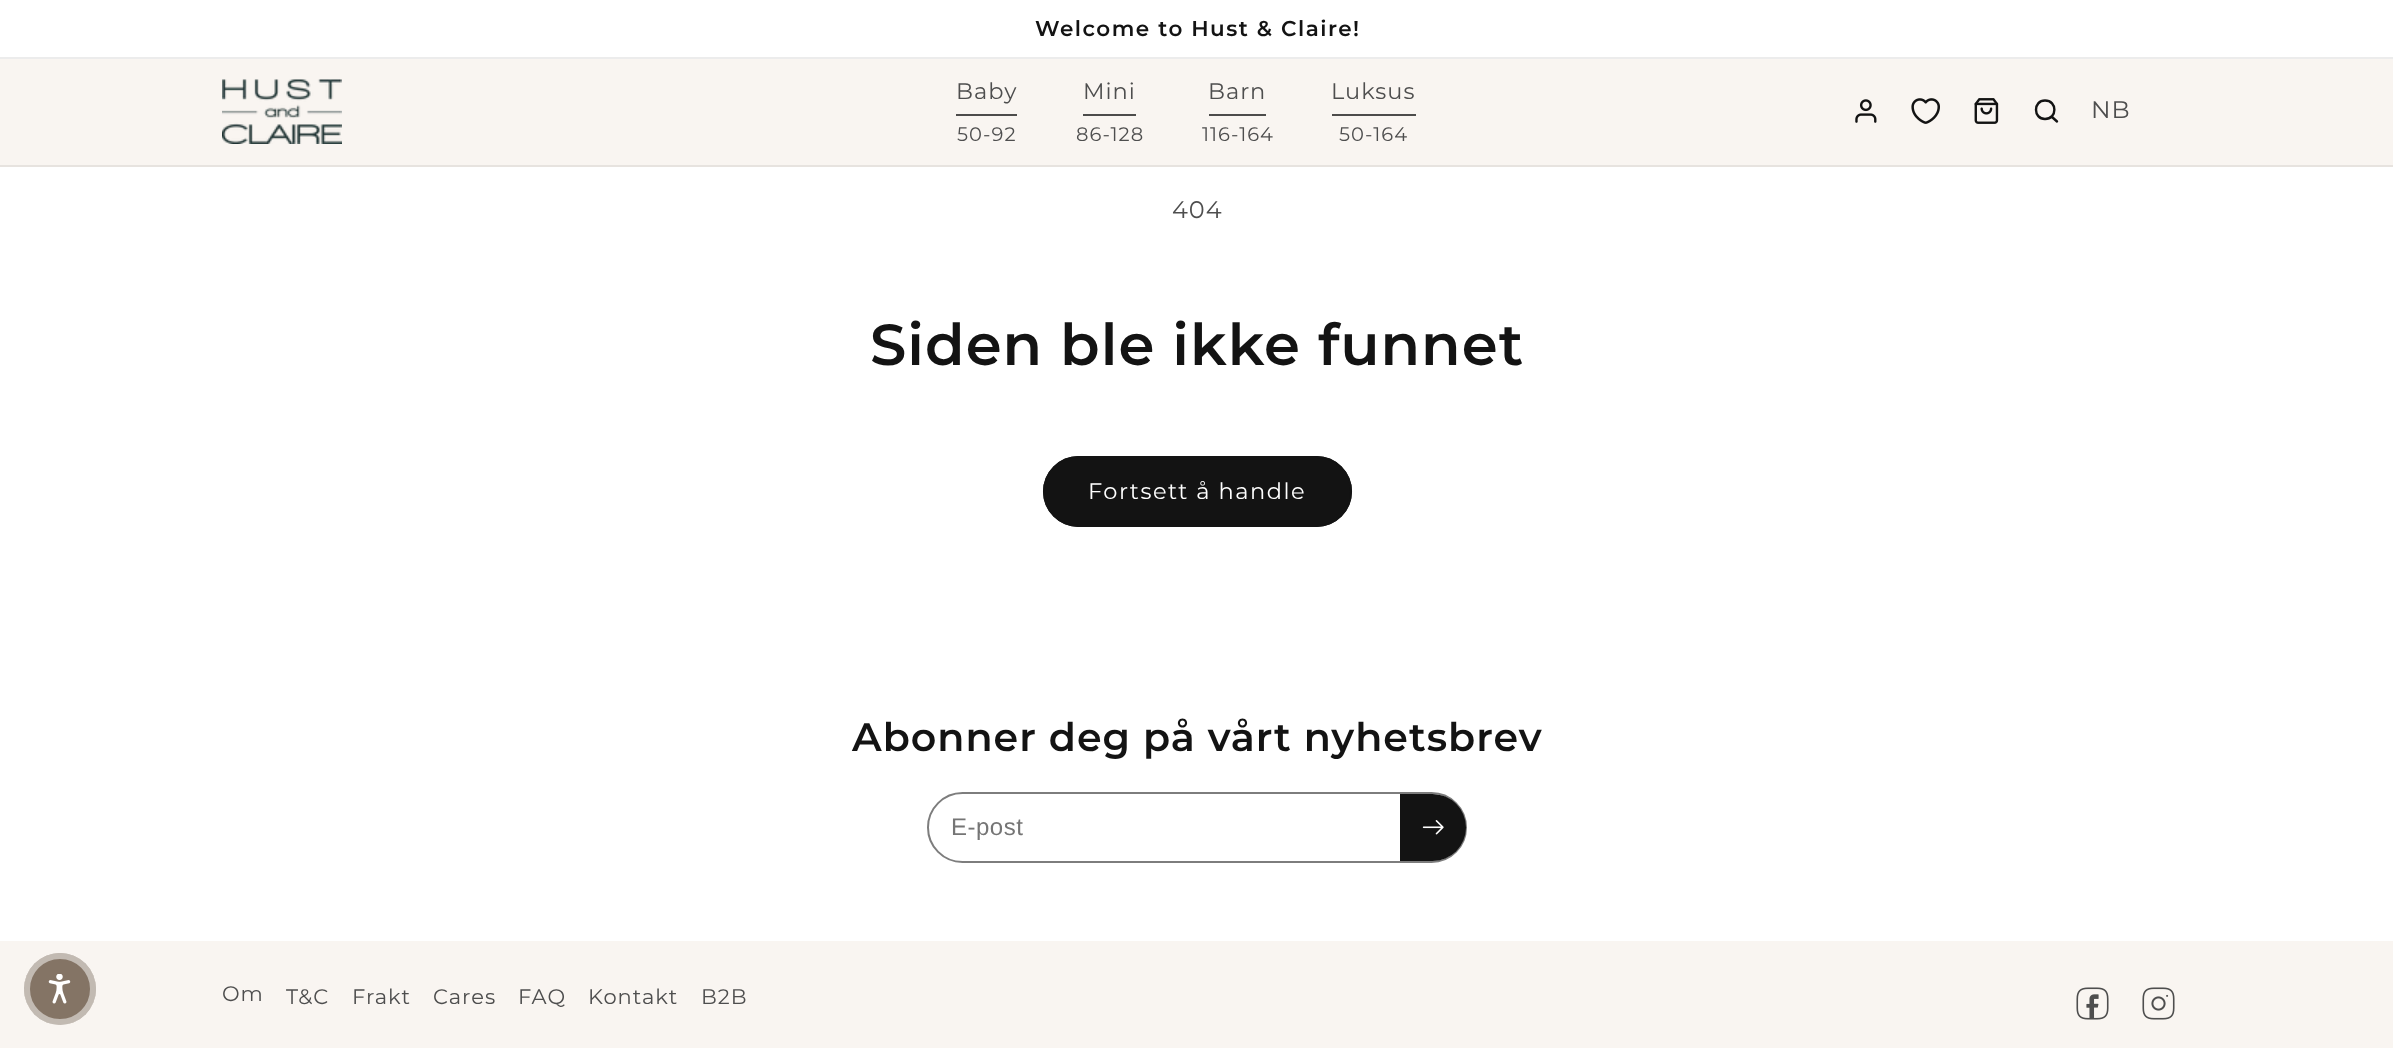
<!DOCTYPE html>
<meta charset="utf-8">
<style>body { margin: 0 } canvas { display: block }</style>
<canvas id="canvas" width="2393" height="1048"></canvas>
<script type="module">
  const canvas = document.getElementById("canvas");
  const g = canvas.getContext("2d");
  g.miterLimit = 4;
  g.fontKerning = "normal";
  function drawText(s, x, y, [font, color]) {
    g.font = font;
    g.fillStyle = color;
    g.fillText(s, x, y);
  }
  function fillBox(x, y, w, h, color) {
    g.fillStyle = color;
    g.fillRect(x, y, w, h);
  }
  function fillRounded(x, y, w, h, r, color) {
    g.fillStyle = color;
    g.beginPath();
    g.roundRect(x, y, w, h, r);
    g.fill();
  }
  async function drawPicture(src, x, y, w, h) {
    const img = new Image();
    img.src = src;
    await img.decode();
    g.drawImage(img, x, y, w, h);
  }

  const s1 = ["600 21.5px Montserrat", "#131313"];
  const s2 = ["22.5px Montserrat", "#4E4E4E"];
  const s3 = ["19.5px Montserrat", "#4E4E4E"];
  const s4 = ["24px Montserrat", "#4E4E4E"];
  const s5 = ["600 57.75px Montserrat", "#131313"];
  const s6 = ["22.5px Montserrat", "#FFFFFF"];
  const s7 = ["600 39.6px Montserrat", "#131313"];
  const s8 = ["24px Liberation Sans", "#757575"];
  const s9 = ["21px Montserrat", "#4E4E4E"];

  fillBox(0, 0, 2393, 1048, "#FFFFFF");
  fillBox(0, 57, 2393, 2, "#ECECEC");
  g.letterSpacing = "1.5px";
  drawText("Welcome to Hust & Claire!", 1035, 36, s1);
  fillBox(0, 59, 2393, 106, "#F9F5F1");
  fillBox(0, 165, 2393, 2, "#E7E3DF");
  await drawPicture("pic1.png", 222, 79, 120, 65);
  g.letterSpacing = "1px";
  drawText("Baby", 956, 99, s2);
  fillBox(956, 114, 61, 2, "#4D4C4B");
  drawText("50-92", 957, 141, s3);
  drawText("Mini", 1083, 99, s2);
  fillBox(1083, 114, 53, 2, "#4D4C4B");
  drawText("86-128", 1076, 141, s3);
  drawText("Barn", 1208, 99, s2);
  fillBox(1209, 114, 57, 2, "#4D4C4B");
  drawText("116-164", 1202, 141, s3);
  drawText("Luksus", 1331, 99, s2);
  fillBox(1332, 114, 84, 2, "#4D4C4B");
  drawText("50-164", 1339, 141, s3);
  await drawPicture("pic2.png", 1855, 99, 22, 24);
  await drawPicture("pic3.png", 1911, 98, 29, 26);
  await drawPicture("pic4.png", 1974, 98, 25, 26);
  g.beginPath();
  g.moveTo(2045, 119);
  g.bezierCurveTo(2057.5, 119, 2057.5, 100.5, 2045, 100.5);
  g.bezierCurveTo(2033, 100.5, 2033, 119, 2045, 119);
  g.closePath();
  g.moveTo(2057, 121.5);
  g.lineTo(2051.5, 116.5);
  g.strokeStyle = "#131313";
  g.lineWidth = 2.4;
  g.lineCap = "round";
  g.lineJoin = "round";
  g.stroke();
  drawText("NB", 2091, 118, s4);
  drawText("404", 1172, 218, s4);
  drawText("Siden ble ikke funnet", 870, 365, s5);
  fillRounded(1043, 456, 309, 71, 35.5, "#131313");
  g.beginPath();
  g.roundRect(1044, 457, 307, 69, 34.5);
  g.lineWidth = 2;
  g.lineJoin = "miter";
  g.stroke();
  g.letterSpacing = "1.5px";
  drawText("Fortsett å handle", 1088, 499, s6);
  g.letterSpacing = "1px";
  drawText("Abonner deg på vårt nyhetsbrev", 852, 751, s7);
  g.beginPath();
  g.roundRect(928, 793, 538, 69, 34.5);
  g.strokeStyle = "#7D7D7D";
  g.stroke();
  g.letterSpacing = "0.5px";
  drawText("E-post", 951, 835, s8);
  g.fillStyle = "#131313";
  g.beginPath();
  g.roundRect(1400, 794, 66, 67, [0, 33.5, 33.5, 0]);
  g.fill();
  await drawPicture("pic5.png", 1422, 820, 22, 15);
  fillBox(0, 941, 2393, 107, "#F9F5F1");
  g.fillStyle = "#847465";
  g.beginPath();
  g.arc(60, 989, 36, 0, Math.PI * 2);
  g.fill();
  g.beginPath();
  g.arc(60, 989, 33, 0, Math.PI * 2);
  g.strokeStyle = "rgba(255, 255, 255, 0.5)";
  g.lineWidth = 6;
  g.stroke();
  await drawPicture("pic6.png", 48, 974, 23, 30);
  g.letterSpacing = "1px";
  drawText("Om", 222, 1001, s9);
  drawText("T&C", 286, 1004, s9);
  drawText("Frakt", 352, 1004, s9);
  drawText("Cares", 433, 1004, s9);
  drawText("FAQ", 518, 1004, s9);
  drawText("Kontakt", 588, 1004, s9);
  drawText("B2B", 701, 1004, s9);
  await drawPicture("pic7.png", 2076, 987, 33, 33);
  await drawPicture("pic8.png", 2142, 987, 33, 33);
</script>
